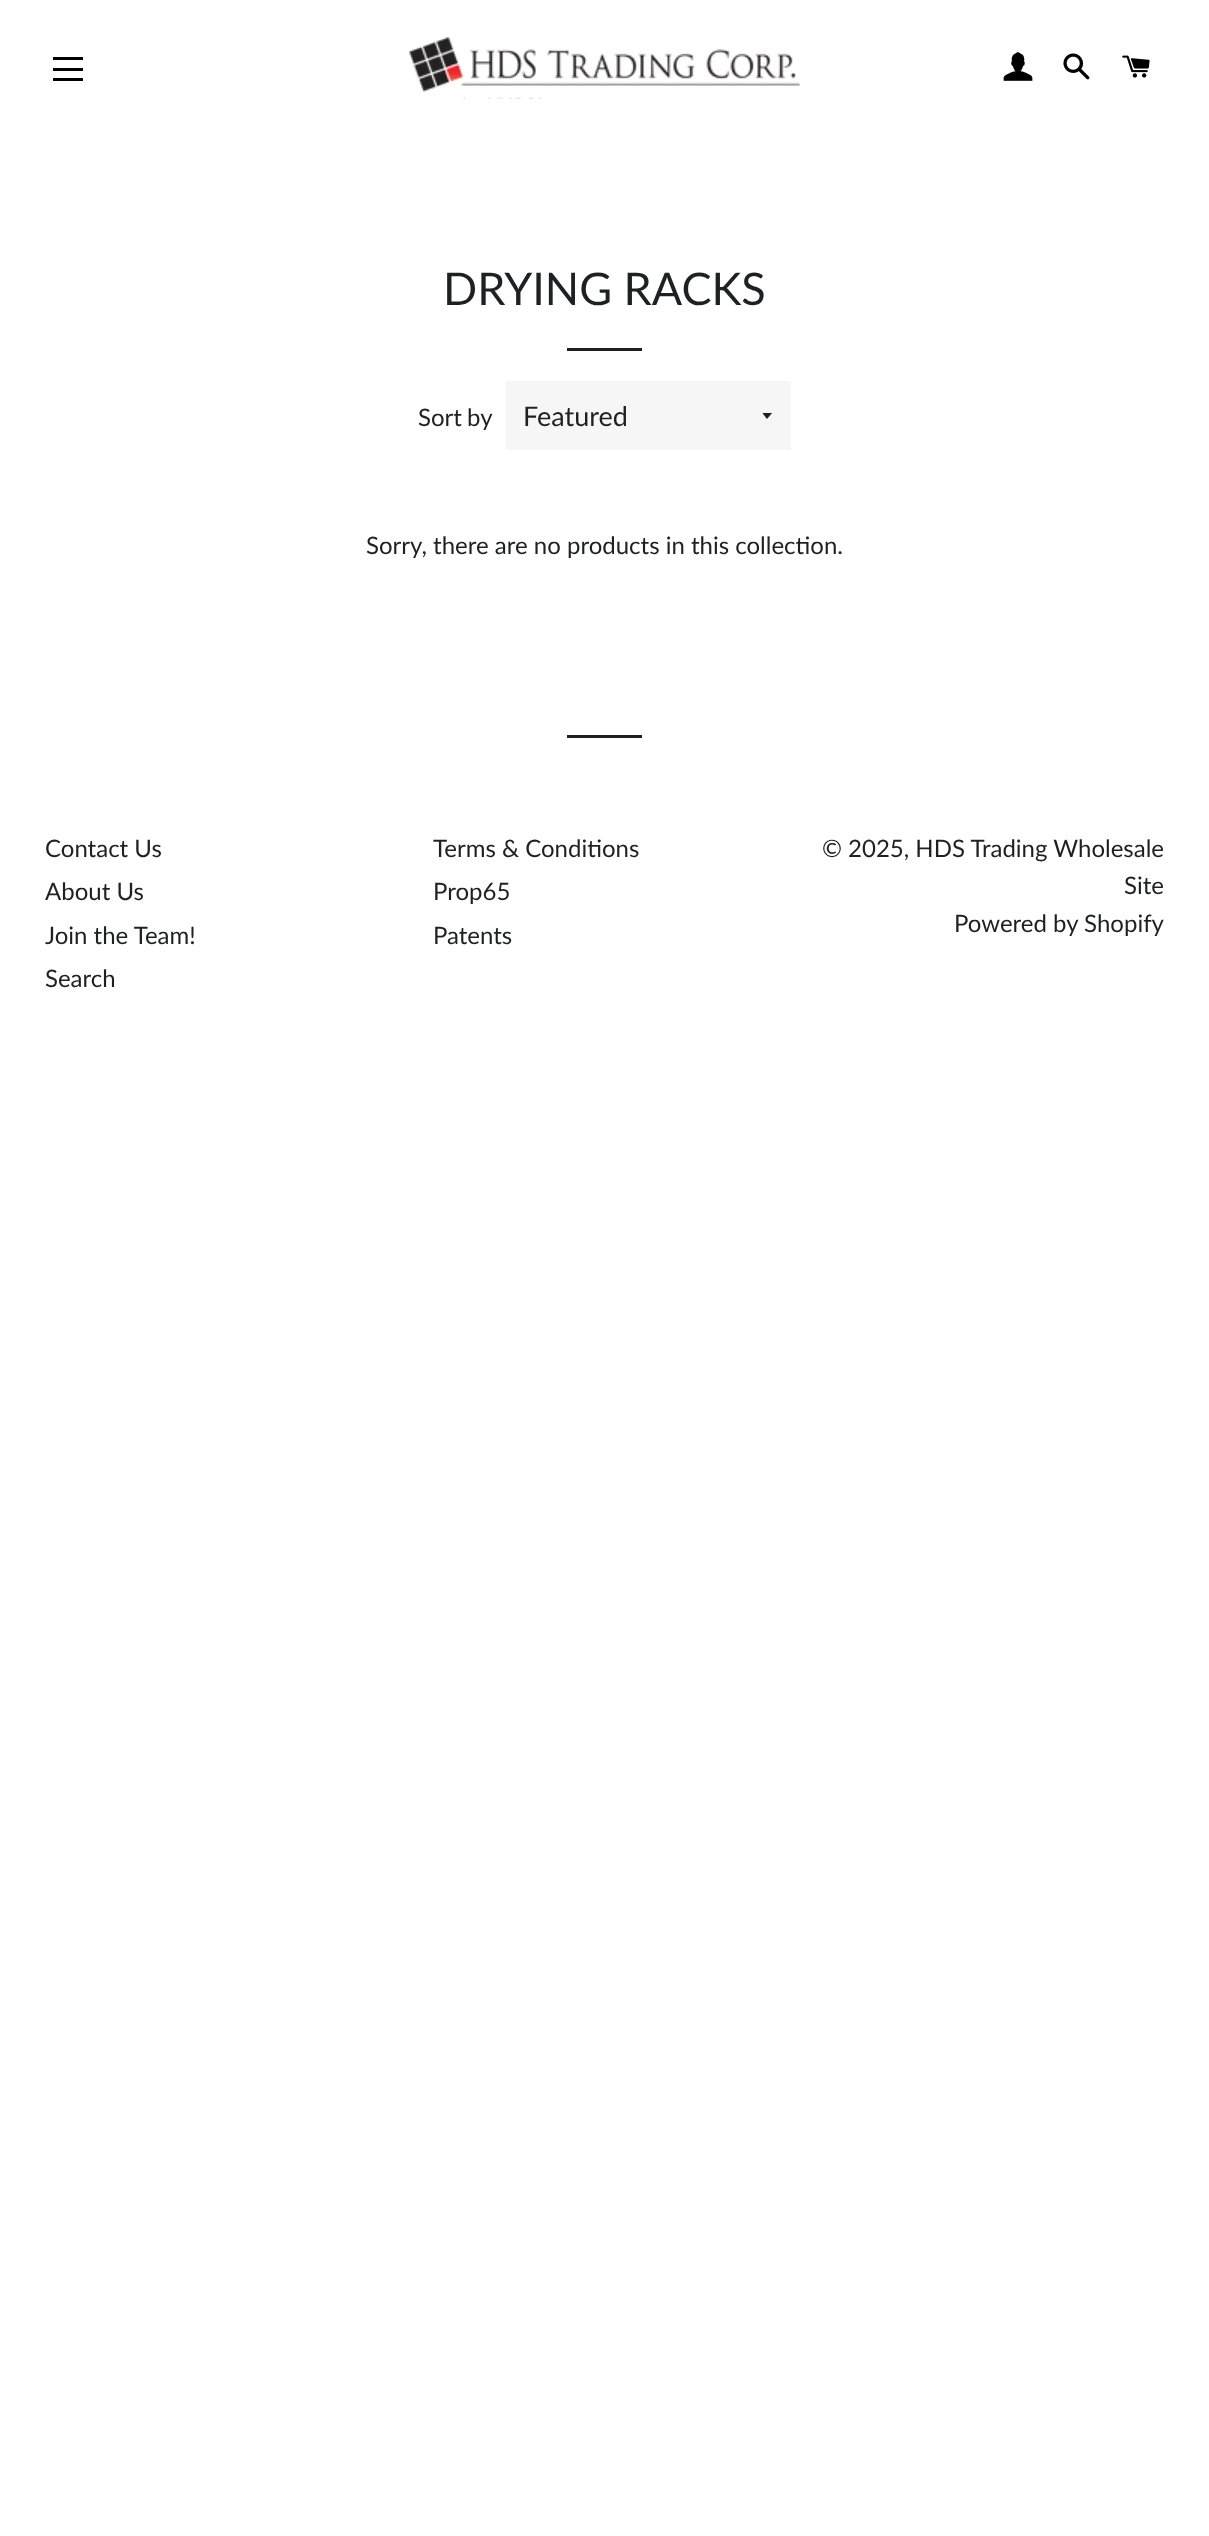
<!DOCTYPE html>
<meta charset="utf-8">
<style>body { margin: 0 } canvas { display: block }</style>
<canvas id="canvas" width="1209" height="2536"></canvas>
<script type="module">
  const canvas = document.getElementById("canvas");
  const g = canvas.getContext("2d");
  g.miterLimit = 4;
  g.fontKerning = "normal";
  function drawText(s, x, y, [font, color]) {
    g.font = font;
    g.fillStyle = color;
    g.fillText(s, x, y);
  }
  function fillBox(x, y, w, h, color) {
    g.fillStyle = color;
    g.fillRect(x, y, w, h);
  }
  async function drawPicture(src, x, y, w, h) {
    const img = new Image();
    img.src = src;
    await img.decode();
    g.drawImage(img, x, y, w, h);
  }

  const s1 = ["45px Lato", "#1F2021"];
  const s2 = ["24px Lato", "#1F2021"];
  const s3 = ["27px Lato", "#1F2021"];

  fillBox(0, 0, 1209, 2536, "#FFFFFF");
  fillBox(53, 57, 30, 3, "#000000");
  fillBox(53, 68, 30, 3, "#000000");
  fillBox(53, 78, 30, 3, "#000000");
  await drawPicture("pic1.png", 409, 37, 391, 62);
  await drawPicture("pic2.png", 1003, 52, 30, 29);
  await drawPicture("pic3.png", 1063, 53, 27, 27);
  await drawPicture("pic4.png", 1122, 55, 28, 23);
  drawText("DRYING RACKS", 443, 305, s1);
  fillBox(567, 348, 75, 3, "#1F2021");
  g.wordSpacing = "-1px";
  drawText("Sort by", 418, 426, s2);
  fillBox(506, 381, 285, 69, "#F6F6F6");
  g.save();
  g.beginPath();
  g.rect(762, 413, 12, 7);
  g.clip();
  g.fillStyle = "#1F2021";
  g.beginPath();
  g.moveTo(762, 412.5);
  g.lineTo(767, 419);
  g.lineTo(772.5, 412.5);
  g.closePath();
  g.fill();
  g.restore();
  g.wordSpacing = "0px";
  drawText("Featured", 523, 426, s3);
  drawText("Sorry, there are no products in this collection.", 366, 554, s2);
  fillBox(567, 735, 75, 3, "#1F2021");
  drawText("Contact Us", 45, 857, s2);
  drawText("About Us", 45, 900, s2);
  drawText("Join the Team!", 45, 944, s2);
  drawText("Search", 45, 987, s2);
  drawText("Terms & Conditions", 433, 857, s2);
  drawText("Prop65", 433, 900, s2);
  drawText("Patents", 433, 944, s2);
  drawText("© 2025, HDS Trading Wholesale", 822, 857, s2);
  drawText("Site", 1124, 894, s2);
  drawText("Powered by Shopify", 954, 932, s2);
</script>
